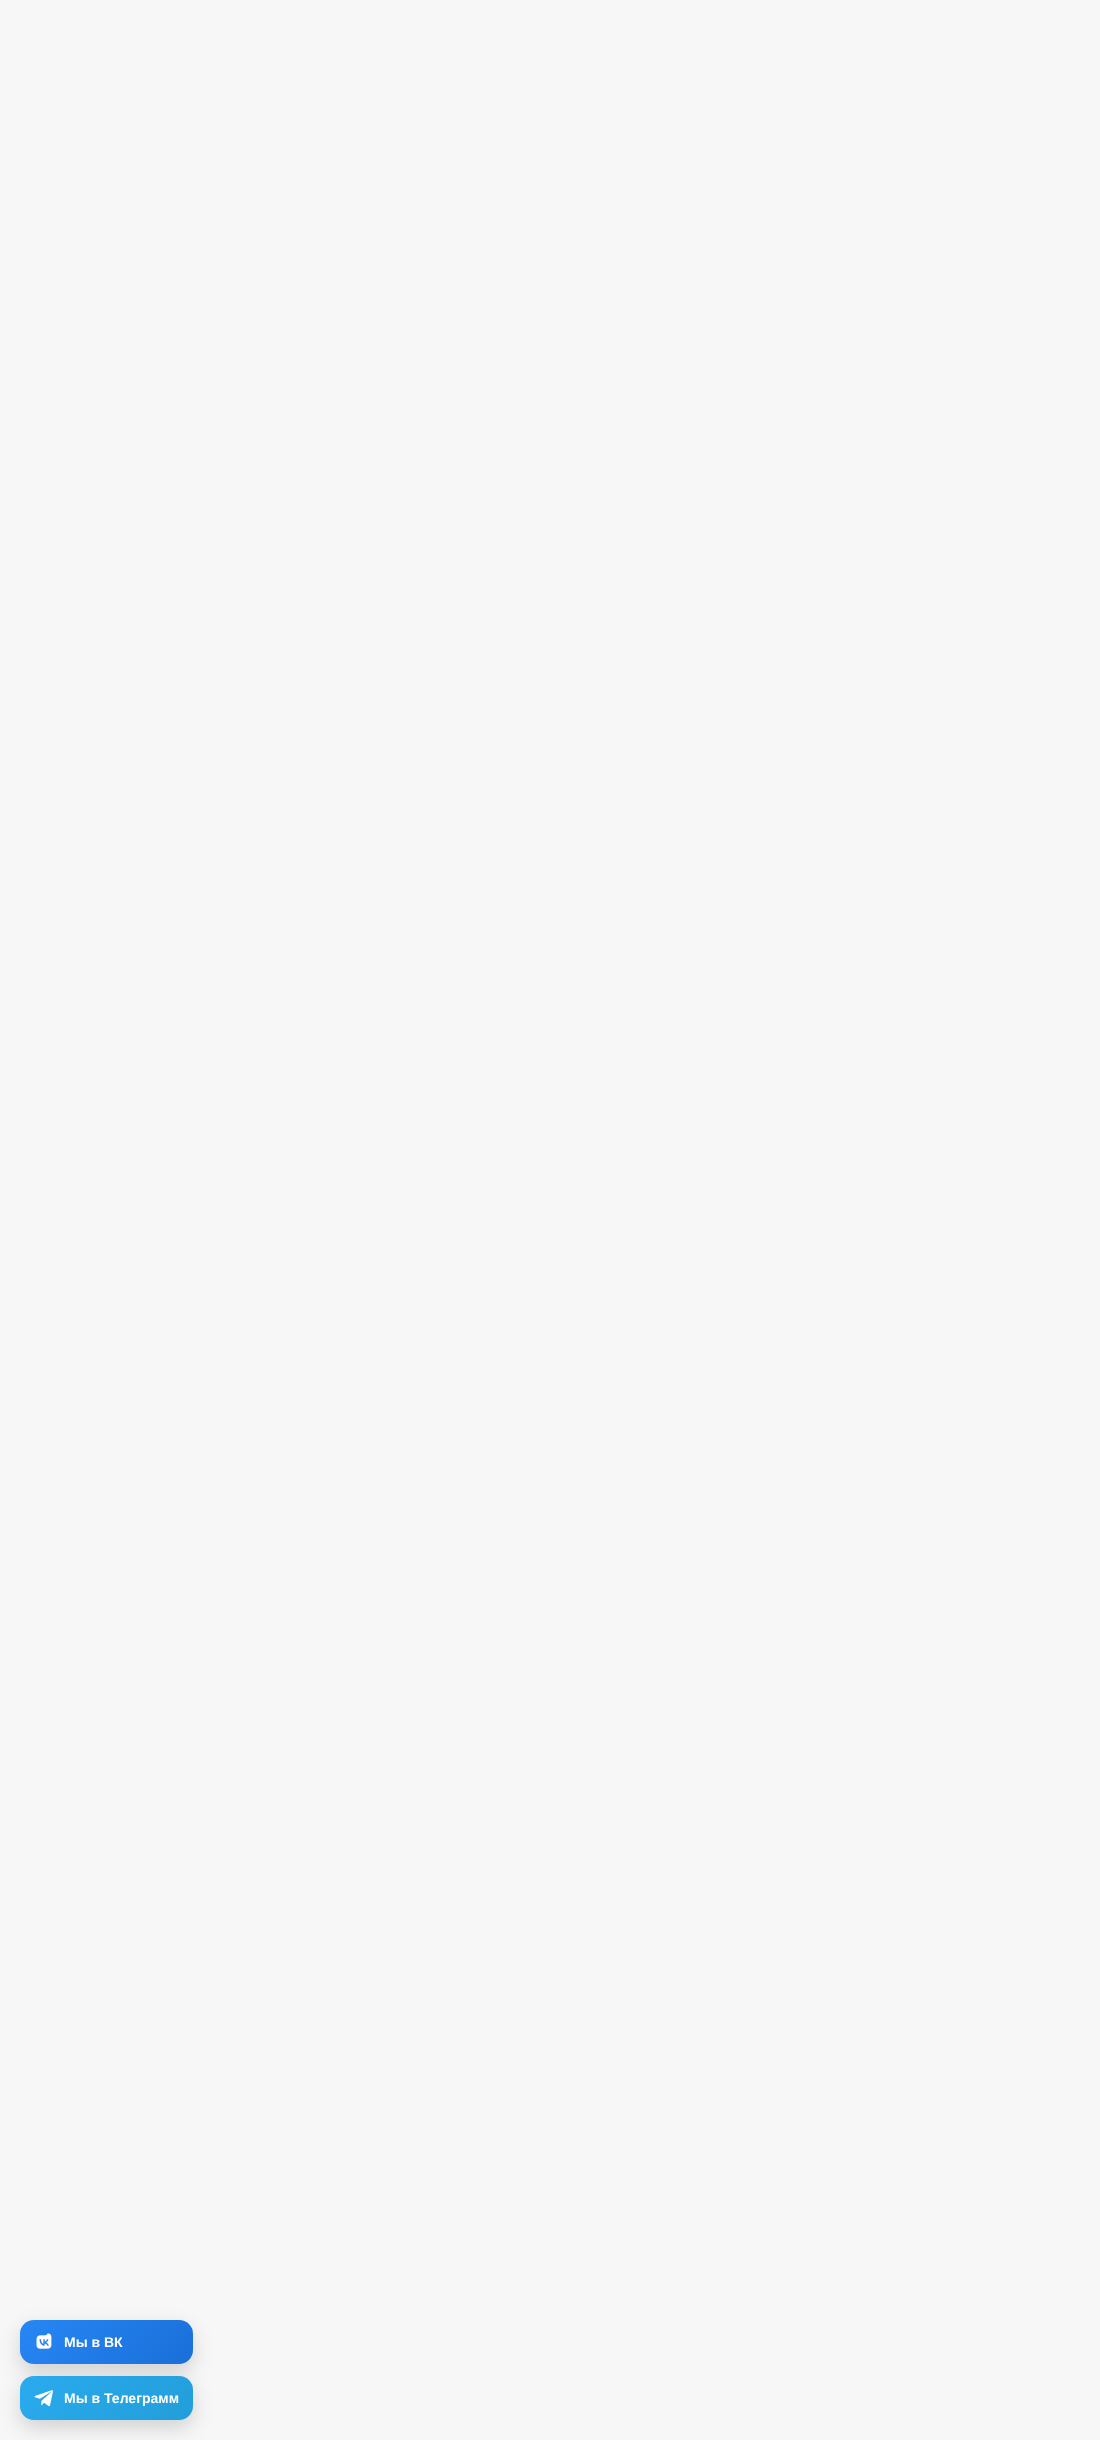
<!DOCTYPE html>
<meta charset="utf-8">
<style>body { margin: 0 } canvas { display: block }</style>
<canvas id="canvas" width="1100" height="2440"></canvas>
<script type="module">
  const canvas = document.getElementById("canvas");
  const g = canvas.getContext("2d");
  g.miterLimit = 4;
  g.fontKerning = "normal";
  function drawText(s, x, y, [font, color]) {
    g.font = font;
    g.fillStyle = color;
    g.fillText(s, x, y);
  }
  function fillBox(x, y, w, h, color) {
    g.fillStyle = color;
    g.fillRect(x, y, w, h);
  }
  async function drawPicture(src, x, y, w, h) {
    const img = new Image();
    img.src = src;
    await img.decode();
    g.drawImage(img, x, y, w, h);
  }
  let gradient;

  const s1 = ["bold 14px Liberation Sans", "#FFFFFF"];

  fillBox(0, 0, 1100, 2440, "#F7F7F7");
  g.fillStyle = "rgba(0, 0, 0, 0.15)";
  g.filter = "blur(10px)";
  g.beginPath();
  g.roundRect(20, 2328, 173, 44, 14);
  g.fill();
  g.filter = "none";
  gradient = g.createLinearGradient(52, 2288, 161, 2396);
  gradient.addColorStop(0, "#2787F5");
  gradient.addColorStop(1, "#1A6FD8");
  g.fillStyle = gradient;
  g.beginPath();
  g.roundRect(20, 2320, 173, 44, 14);
  g.fill();
  await drawPicture("pic1.png", 36, 2333, 16, 16);
  drawText("Мы в ВК", 64, 2347, s1);
  g.fillStyle = "rgba(0, 0, 0, 0.15)";
  g.filter = "blur(10px)";
  g.beginPath();
  g.roundRect(20, 2384, 173, 44, 14);
  g.fill();
  g.filter = "none";
  gradient = g.createLinearGradient(52, 2344, 161, 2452);
  gradient.addColorStop(0, "#2AABEE");
  gradient.addColorStop(1, "#229ED9");
  g.fillStyle = gradient;
  g.beginPath();
  g.roundRect(20, 2376, 173, 44, 14);
  g.fill();
  await drawPicture("pic2.png", 34, 2390, 19, 17);
  drawText("Мы в Телеграмм", 64, 2403, s1);
</script>
